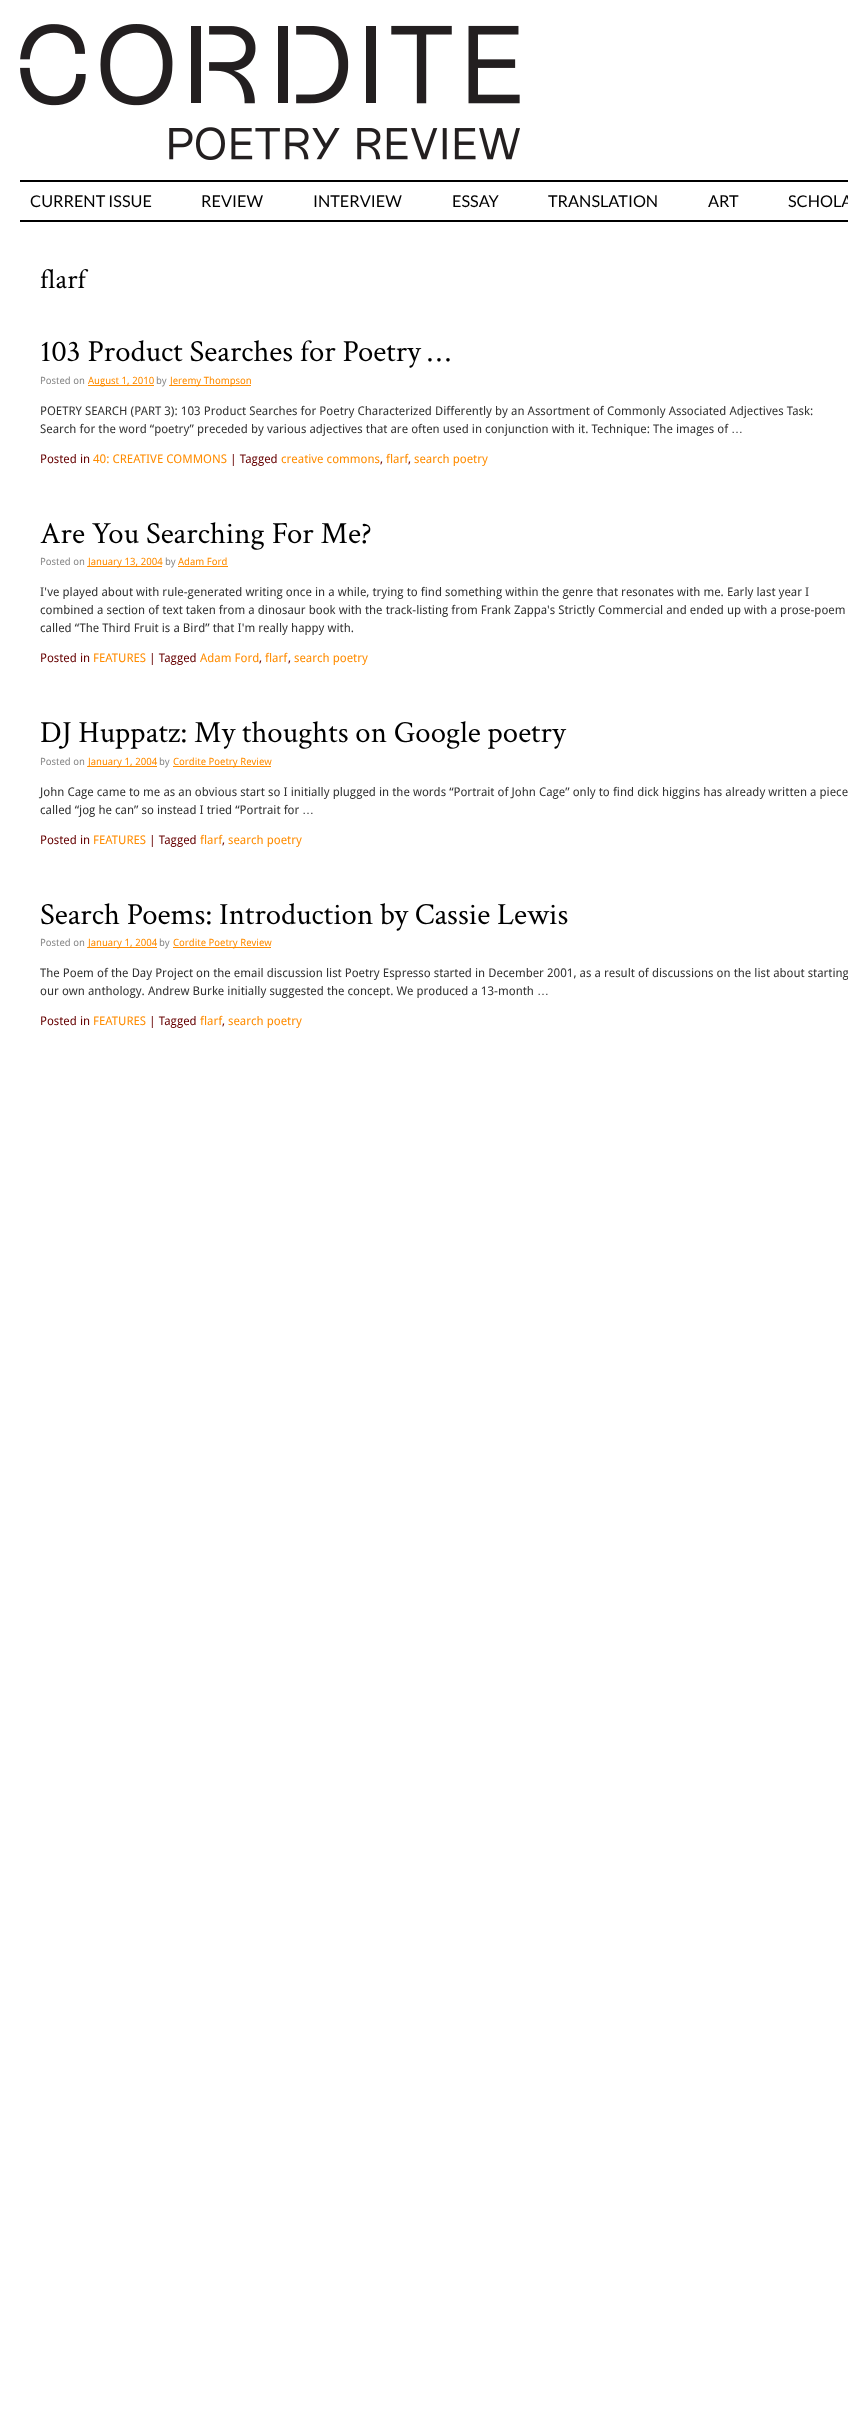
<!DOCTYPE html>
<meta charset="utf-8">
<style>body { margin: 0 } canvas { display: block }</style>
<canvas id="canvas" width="848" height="2411"></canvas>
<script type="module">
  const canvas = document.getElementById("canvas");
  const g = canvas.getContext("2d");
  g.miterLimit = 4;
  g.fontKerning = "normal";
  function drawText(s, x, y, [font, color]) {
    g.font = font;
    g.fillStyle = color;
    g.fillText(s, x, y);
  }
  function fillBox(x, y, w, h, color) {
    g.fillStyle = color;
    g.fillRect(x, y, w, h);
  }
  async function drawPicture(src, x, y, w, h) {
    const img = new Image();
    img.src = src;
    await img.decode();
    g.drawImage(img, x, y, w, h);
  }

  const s1 = ["16.25px Lato", "#000000"];
  const s2 = ["28px Crimson Text", "#000000"];
  const s3 = ["30.75px Crimson Text", "#000000"];
  const s4 = ["10px Droid Sans", "#888888"];
  const s5 = ["10px Droid Sans", "#FF8C00"];
  const s6 = ["12px Droid Sans", "#333333"];
  const s7 = ["12px Liberation Sans", "#333333"];
  const s8 = ["12px Droid Sans", "#660000"];
  const s9 = ["12px Droid Sans", "#FF8C00"];

  fillBox(0, 0, 848, 2411, "#FFFFFF");
  await drawPicture("pic1.png", 20, 24, 500, 136);
  fillBox(20, 180, 828, 2, "#000000");
  fillBox(20, 220, 828, 2, "#000000");
  drawText("CURRENT ISSUE", 30, 207, s1);
  drawText("REVIEW", 201, 207, s1);
  drawText("INTERVIEW", 313, 207, s1);
  drawText("ESSAY", 452, 207, s1);
  drawText("TRANSLATION", 548, 207, s1);
  drawText("ART", 708, 207, s1);
  drawText("SCHOLA", 788, 207, s1);
  drawText("flarf", 40, 288, s2);
  drawText("103 Product Searches for Poetry …", 40, 361, s3);
  drawText("Posted on", 40, 384, s4);
  fillBox(88, 385, 66, 1, "#FF8C00");
  drawText("August 1, 2010", 88, 384, s5);
  drawText("by", 156, 384, s4);
  fillBox(170, 385, 81, 1, "#FF8C00");
  drawText("Jeremy Thompson", 170, 384, s5);
  drawText("POETRY SEARCH (PART 3): 103 Product Searches for Poetry Characterized Differently by an Assortment of Commonly Associated Adjectives Task:", 40, 415, s6);
  drawText("Search for the word “poetry” preceded by various adjectives that are often used in conjunction with it. Technique: The images of", 40, 433, s6);
  drawText("…", 731, 433, s7);
  drawText("Posted in", 40, 463, s8);
  drawText("40: CREATIVE COMMONS", 93, 463, s9);
  drawText("| Tagged", 230, 463, s8);
  drawText("creative commons", 281, 463, s9);
  drawText(",", 380, 463, s8);
  drawText("flarf", 386, 463, s9);
  drawText(",", 408, 463, s8);
  drawText("search poetry", 414, 463, s9);
  drawText("Are You Searching For Me?", 40, 543, s3);
  drawText("Posted on", 40, 565, s4);
  fillBox(88, 566, 74, 1, "#FF8C00");
  drawText("January 13, 2004", 88, 565, s5);
  drawText("by", 165, 565, s4);
  drawText("Adam Ford", 178, 565, s5);
  fillBox(178, 566, 50, 1, "#FF8C00");
  drawText("I've played about with rule-generated writing once in a while, trying to find something within the genre that resonates with me. Early last year I", 40, 596, s6);
  drawText("combined a section of text taken from a dinosaur book with the track-listing from Frank Zappa's Strictly Commercial and ended up with a prose-poem", 40, 614, s6);
  drawText("called “The Third Fruit is a Bird” that I'm really happy with.", 40, 632, s6);
  drawText("Posted in", 40, 662, s8);
  drawText("FEATURES", 93, 662, s9);
  drawText("| Tagged", 149, 662, s8);
  drawText("Adam Ford", 200, 662, s9);
  drawText(",", 259, 662, s8);
  drawText("flarf", 265, 662, s9);
  drawText("search poetry", 294, 662, s9);
  drawText(",", 288, 662, s8);
  drawText("DJ Huppatz: My thoughts on Google poetry", 40, 742, s3);
  drawText("Posted on", 40, 765, s4);
  fillBox(88, 766, 69, 1, "#FF8C00");
  drawText("January 1, 2004", 88, 765, s5);
  drawText("by", 159, 765, s4);
  fillBox(173, 766, 98, 1, "#FF8C00");
  drawText("Cordite Poetry Review", 173, 765, s5);
  drawText("John Cage came to me as an obvious start so I initially plugged in the words “Portrait of John Cage” only to find dick higgins has already written a piece", 40, 796, s6);
  drawText("called “jog he can” so instead I tried “Portrait for", 40, 814, s6);
  drawText("…", 302, 814, s7);
  drawText("Posted in", 40, 844, s8);
  drawText("FEATURES", 93, 844, s9);
  drawText("| Tagged", 149, 844, s8);
  drawText("flarf", 200, 844, s9);
  drawText(",", 222, 844, s8);
  drawText("search poetry", 228, 844, s9);
  drawText("Search Poems: Introduction by Cassie Lewis", 40, 924, s3);
  drawText("Posted on", 40, 946, s4);
  fillBox(88, 947, 69, 1, "#FF8C00");
  drawText("January 1, 2004", 88, 946, s5);
  drawText("by", 159, 946, s4);
  fillBox(173, 947, 98, 1, "#FF8C00");
  drawText("Cordite Poetry Review", 173, 946, s5);
  drawText("The Poem of the Day Project on the email discussion list Poetry Espresso started in December 2001, as a result of discussions on the list about starting", 40, 977, s6);
  drawText("our own anthology. Andrew Burke initially suggested the concept. We produced a 13-month", 40, 995, s6);
  drawText("…", 537, 995, s7);
  drawText("Posted in", 40, 1025, s8);
  drawText("FEATURES", 93, 1025, s9);
  drawText("| Tagged", 149, 1025, s8);
  drawText("flarf", 200, 1025, s9);
  drawText(",", 222, 1025, s8);
  drawText("search poetry", 228, 1025, s9);
</script>
